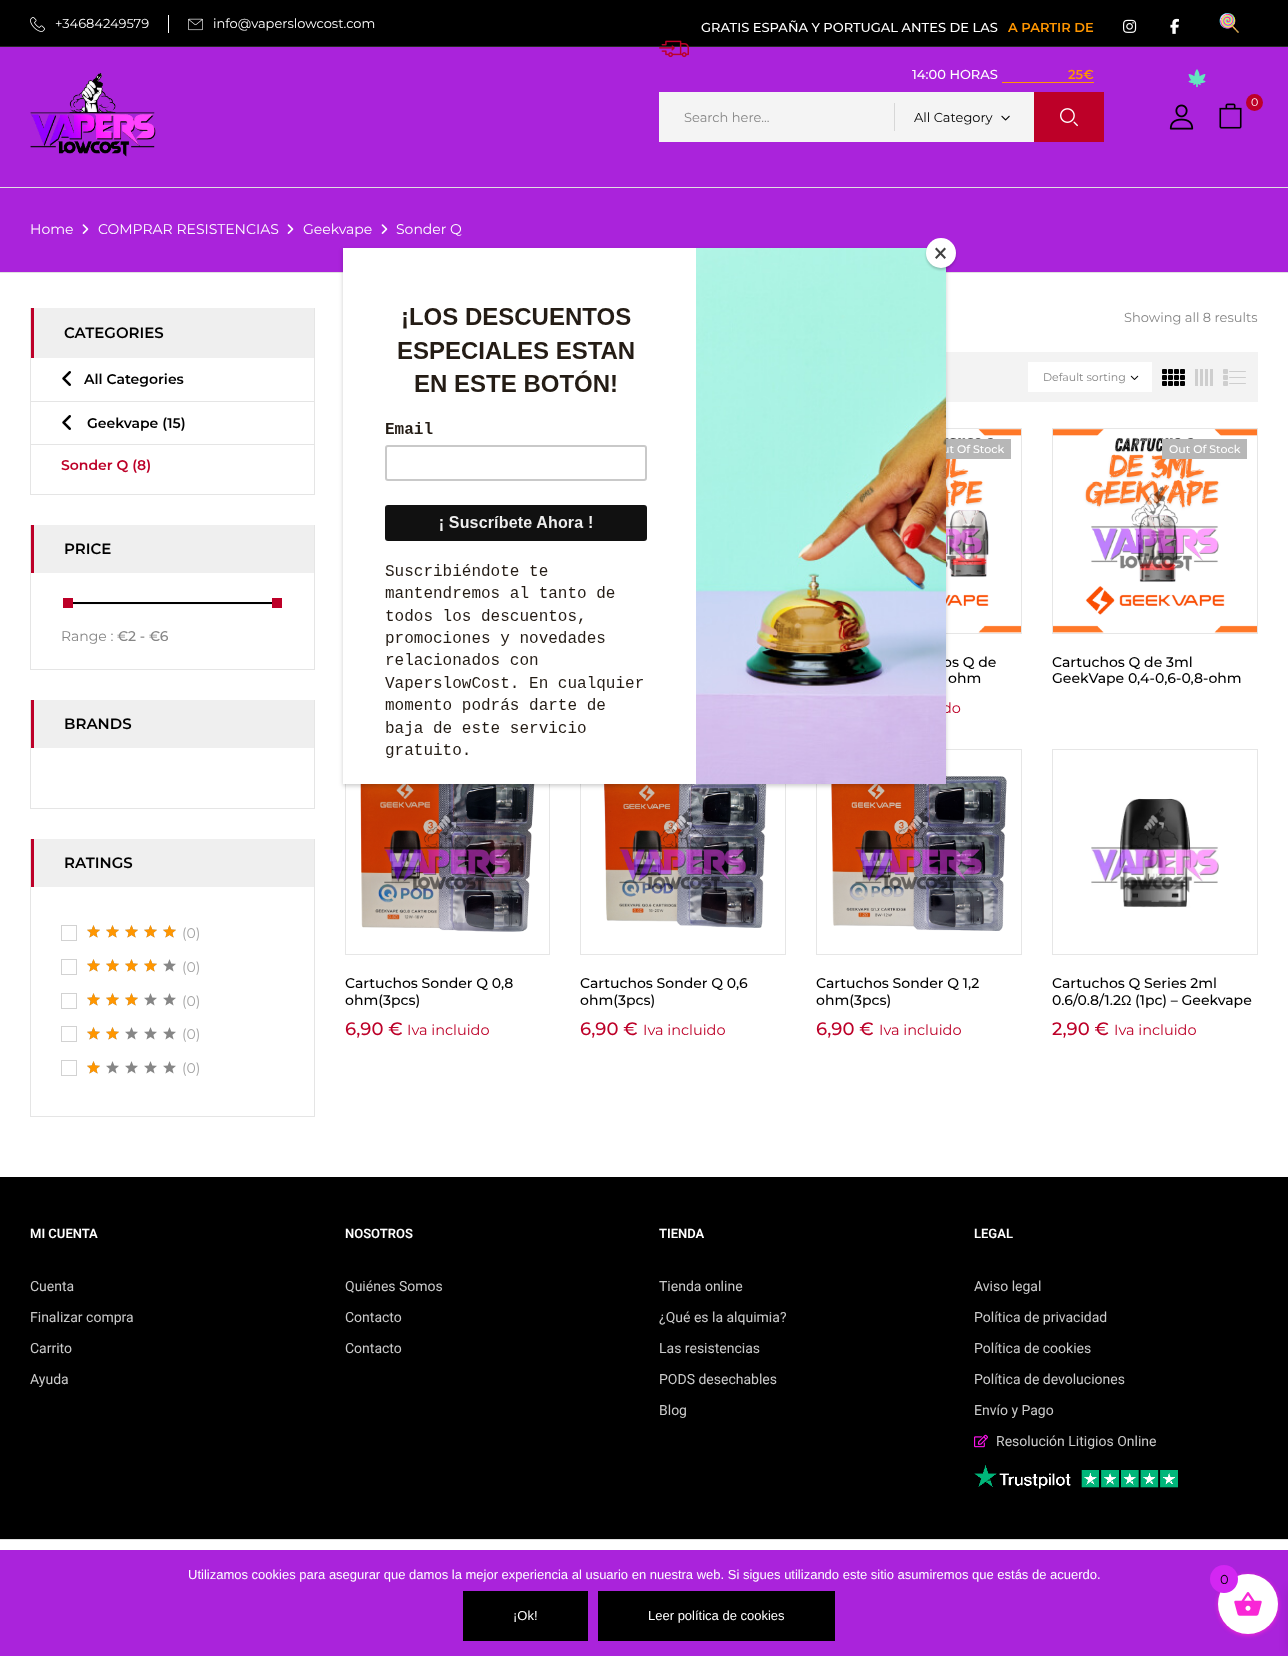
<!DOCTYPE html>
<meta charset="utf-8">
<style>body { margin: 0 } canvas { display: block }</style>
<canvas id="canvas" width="1288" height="1656"></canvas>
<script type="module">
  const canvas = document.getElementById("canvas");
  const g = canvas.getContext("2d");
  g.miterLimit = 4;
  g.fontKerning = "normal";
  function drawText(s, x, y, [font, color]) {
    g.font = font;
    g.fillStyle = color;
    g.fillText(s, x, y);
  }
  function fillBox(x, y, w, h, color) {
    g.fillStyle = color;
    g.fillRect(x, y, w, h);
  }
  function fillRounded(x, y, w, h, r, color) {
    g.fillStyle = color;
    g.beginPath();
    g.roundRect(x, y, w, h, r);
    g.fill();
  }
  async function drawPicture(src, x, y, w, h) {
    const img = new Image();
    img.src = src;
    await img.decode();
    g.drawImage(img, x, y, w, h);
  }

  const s1 = ["13px Montserrat", "#FFFFFF"];
  const s2 = ["500 13px Montserrat", "#FFFFFF"];
  const s3 = ["600 13px Montserrat", "#FF9600"];
  const s4 = ["18px Noto Color Emoji", "#FFFFFF"];
  const s5 = ["11px Montserrat", "#FFFFFF"];
  const s6 = ["13px Montserrat", "#868686"];
  const s7 = ["13px Montserrat", "#000000"];
  const s8 = ["14px Montserrat", "#FFFFFF"];
  const s9 = ["600 15px Montserrat", "#000000"];
  const s10 = ["600 14px Montserrat", "#000000"];
  const s11 = ["600 14px Montserrat", "#BD0028"];
  const s12 = ["14px Montserrat", "#868686"];
  const s13 = ["500 14px Montserrat", "#868686"];
  const s14 = ["14px Montserrat", "#A4A4A4"];
  const s15 = ["11px Montserrat", "#868686"];
  const s16 = ["500 11px Montserrat", "#FFFFFF"];
  const s17 = ["500 14px Montserrat", "#000000"];
  const s18 = ["14.5px Montserrat", "#BD0028"];
  const s19 = ["500 18px Montserrat", "#BD0028"];
  const s20 = ["14px Liberation Sans", "#000000"];
  const s21 = ["600 13px Roboto", "#FFFFFF"];
  const s22 = ["14px Roboto", "#CACACA"];
  const s23 = ["13px Liberation Sans", "#FFFFFF"];

  fillBox(0, 0, 1288, 1656, "#FFFFFF");
  fillBox(0, 47, 1288, 140, "#AA23DB");
  fillBox(0, 0, 1288, 46, "#000000");
  fillBox(0, 46, 1288, 1, "#252525");
  await drawPicture("pic1.png", 30, 17, 15, 15);
  drawText("+34684249579", 55, 28, s1);
  fillBox(168, 15, 1, 18, "#FFFFFF");
  await drawPicture("pic2.png", 188, 18, 15, 13);
  drawText("info@vaperslowcost.com", 213, 28, s1);
  await drawPicture("pic3.png", 659, 40, 30, 18);
  drawText("GRATIS ESPAÑA Y PORTUGAL ANTES DE LAS", 701, 32, s2);
  drawText("14:00 HORAS", 912, 79, s2);
  drawText("A PARTIR DE", 1008, 32, s3);
  drawText("25€", 1068, 79, s3);
  fillBox(1002, 82, 92, 1, "#FF9600");
  await drawPicture("pic4.png", 1123, 19, 14, 14);
  await drawPicture("pic5.png", 1170, 18, 9, 16);
  drawText("🍭", 1218, 29, s4);
  await drawPicture("pic6.png", 1188, 69, 18, 19);
  await drawPicture("pic7.png", 30, 72, 126, 85);
  await drawPicture("pic8.png", 1219, 103, 23, 26);
  g.fillStyle = "#BD0028";
  g.beginPath();
  g.arc(1254.5, 102.5, 8.5, 0, Math.PI * 2);
  g.fill();
  drawText("0", 1251, 106, s5);
  await drawPicture("pic9.png", 1169, 104, 25, 26);
  fillBox(659, 92, 375, 50, "#F4F4F4");
  drawText("Search here...", 684, 122, s6);
  fillBox(894, 103, 1, 28, "#D7D7D7");
  drawText("All Category", 914, 122, s7);
  await drawPicture("pic10.png", 1001, 115, 9, 6);
  fillBox(1034, 92, 70, 50, "#BD0028");
  await drawPicture("pic11.png", 1060, 108, 18, 19);
  fillBox(0, 188, 1288, 84, "#AA23DB");
  fillBox(0, 187, 1288, 1, "#E0E0E0");
  fillBox(0, 272, 1288, 1, "#E0E0E0");
  drawText("Home", 30, 234, s8);
  await drawPicture("pic12.png", 82, 224, 7, 10);
  drawText("COMPRAR RESISTENCIAS", 98, 234, s8);
  await drawPicture("pic12.png", 287, 224, 7, 10);
  drawText("Geekvape", 303, 234, s8);
  await drawPicture("pic12.png", 381, 224, 7, 10);
  drawText("Sonder Q", 396, 234, s8);
  fillBox(314, 308, 1, 187, "#E5E5E5");
  fillBox(30, 494, 285, 1, "#E5E5E5");
  fillBox(30, 308, 1, 187, "#E5E5E5");
  fillBox(34, 308, 280, 50, "#EFEFEF");
  fillBox(31, 308, 3, 50, "#BD0028");
  drawText("CATEGORIES", 64, 338, s9);
  fillBox(31, 401, 283, 1, "#E5E5E5");
  await drawPicture("pic13.png", 62, 371, 9, 15);
  drawText("All Categories", 84, 384, s10);
  fillBox(31, 444, 283, 1, "#E5E5E5");
  await drawPicture("pic13.png", 62, 415, 9, 15);
  drawText("Geekvape (15)", 87, 428, s10);
  drawText("Sonder Q (8)", 61, 470, s11);
  fillBox(314, 525, 1, 145, "#E5E5E5");
  fillBox(30, 669, 285, 1, "#E5E5E5");
  fillBox(30, 525, 1, 145, "#E5E5E5");
  fillBox(34, 525, 280, 48, "#EFEFEF");
  fillBox(31, 525, 3, 48, "#BD0028");
  drawText("PRICE", 64, 554, s9);
  fillBox(68, 604, 209, 1, "#F5F5F5");
  fillBox(68, 602, 209, 2, "#000000");
  fillBox(63, 598, 10, 10, "#BD0028");
  fillBox(272, 598, 10, 10, "#BD0028");
  drawText("Range :", 61, 641, s12);
  drawText("€2 - €6", 117, 641, s13);
  fillBox(314, 700, 1, 109, "#E5E5E5");
  fillBox(30, 808, 285, 1, "#E5E5E5");
  fillBox(30, 700, 1, 109, "#E5E5E5");
  fillBox(34, 700, 280, 48, "#EFEFEF");
  fillBox(31, 700, 3, 48, "#BD0028");
  drawText("BRANDS", 64, 729, s9);
  fillBox(314, 839, 1, 278, "#E5E5E5");
  fillBox(30, 1116, 285, 1, "#E5E5E5");
  fillBox(30, 839, 1, 278, "#E5E5E5");
  fillBox(34, 839, 280, 48, "#EFEFEF");
  fillBox(31, 839, 3, 48, "#BD0028");
  drawText("RATINGS", 64, 868, s9);
  g.strokeStyle = "#D2D2D2";
  g.strokeRect(61.5, 925.5, 15, 15);
  await drawPicture("pic14.png", 87, 925, 89, 13);
  await drawPicture("pic15.png", 87, 925, 89, 13);
  drawText("(0)", 182, 938, s14);
  g.strokeRect(61.5, 959.5, 15, 15);
  await drawPicture("pic14.png", 87, 959, 89, 13);
  await drawPicture("pic16.png", 87, 959, 70, 13);
  drawText("(0)", 182, 972, s14);
  g.strokeRect(61.5, 993.5, 15, 15);
  await drawPicture("pic14.png", 87, 993, 89, 13);
  await drawPicture("pic17.png", 87, 993, 51, 13);
  drawText("(0)", 182, 1006, s14);
  g.strokeRect(61.5, 1026.5, 15, 15);
  await drawPicture("pic14.png", 87, 1027, 89, 13);
  await drawPicture("pic18.png", 87, 1027, 32, 13);
  drawText("(0)", 182, 1039, s14);
  g.strokeRect(61.5, 1060.5, 15, 15);
  await drawPicture("pic14.png", 87, 1061, 89, 13);
  await drawPicture("pic19.png", 87, 1061, 13, 13);
  drawText("(0)", 182, 1073, s14);
  drawText("Showing all 8 results", 1124, 322, s6);
  fillBox(946, 352, 312, 50, "#F3F3F3");
  fillBox(1028, 362, 124, 30, "#FFFFFF");
  drawText("Default sorting", 1043, 381, s15);
  await drawPicture("pic20.png", 1130, 375, 9, 5);
  fillRounded(1162, 369, 5, 5, 1, "#000000");
  fillRounded(1168, 369, 5, 5, 1, "#000000");
  fillRounded(1174, 369, 5, 5, 1, "#000000");
  fillRounded(1180, 369, 5, 5, 1, "#000000");
  fillRounded(1162, 375, 5, 5, 1, "#000000");
  fillRounded(1168, 375, 5, 5, 1, "#000000");
  fillRounded(1174, 375, 5, 5, 1, "#000000");
  fillRounded(1180, 375, 5, 5, 1, "#000000");
  fillRounded(1162, 381, 5, 5, 1, "#000000");
  fillRounded(1168, 381, 5, 5, 1, "#000000");
  fillRounded(1174, 381, 5, 5, 1, "#000000");
  fillRounded(1180, 381, 5, 5, 1, "#000000");
  fillBox(1195, 369, 3, 17, "#CECECE");
  fillBox(1200, 369, 3, 17, "#CECECE");
  fillBox(1205, 369, 3, 17, "#CECECE");
  fillBox(1210, 369, 3, 17, "#CECECE");
  fillRounded(1223, 369, 5, 5, 1, "#CECECE");
  fillRounded(1229, 371, 17, 1, 0.5, "#CECECE");
  fillRounded(1223, 375, 5, 5, 1, "#CECECE");
  fillRounded(1229, 377, 17, 1, 0.5, "#CECECE");
  fillRounded(1223, 381, 5, 5, 1, "#CECECE");
  fillRounded(1229, 383, 17, 1, 0.5, "#CECECE");
  g.strokeStyle = "#E6E6E6";
  g.strokeRect(816.5, 428.5, 205, 205);
  await drawPicture("pic21.png", 946, 429, 75, 204);
  fillBox(946, 439, 65, 20, "#B7B7B7");
  drawText("ut Of Stock", 942, 453, s16);
  drawText("os Q de", 943, 667, s17);
  drawText("ohm", 948, 683, s17);
  drawText("do", 942, 713, s18);
  g.strokeRect(1052.5, 428.5, 205, 205);
  await drawPicture("pic22.png", 1053, 429, 204, 204);
  fillBox(1162, 439, 85, 20, "#B7B7B7");
  drawText("Out Of Stock", 1169, 453, s16);
  drawText("Cartuchos Q de 3ml", 1052, 667, s17);
  drawText("GeekVape 0,4-0,6-0,8-ohm", 1052, 683, s17);
  g.strokeRect(345.5, 749.5, 204, 205);
  await drawPicture("pic23.png", 360, 784, 175, 148);
  drawText("Cartuchos Sonder Q 0,8", 345, 988, s17);
  drawText("ohm(3pcs)", 345, 1005, s17);
  drawText("6,90 €", 345, 1035, s19);
  drawText("Iva incluido", 407, 1035, s18);
  g.strokeRect(580.5, 749.5, 205, 205);
  await drawPicture("pic24.png", 603, 784, 164, 144);
  drawText("Cartuchos Sonder Q 0,6", 580, 988, s17);
  drawText("ohm(3pcs)", 580, 1005, s17);
  drawText("6,90 €", 580, 1035, s19);
  drawText("Iva incluido", 643, 1035, s18);
  g.strokeRect(816.5, 749.5, 205, 205);
  await drawPicture("pic25.png", 831, 773, 176, 158);
  drawText("Cartuchos Sonder Q 1,2", 816, 988, s17);
  drawText("ohm(3pcs)", 816, 1005, s17);
  drawText("6,90 €", 816, 1035, s19);
  drawText("Iva incluido", 879, 1035, s18);
  g.strokeRect(1052.5, 749.5, 205, 205);
  await drawPicture("pic26.png", 1091, 798, 128, 110);
  drawText("Cartuchos Q Series 2ml", 1052, 988, s17);
  drawText("0.6/0.8/1.2", 1052, 1005, s17);
  drawText("Ω", 1121, 1005, s20);
  drawText("(1pc) – Geekvape", 1135, 1005, s17);
  drawText("2,90 €", 1052, 1035, s19);
  drawText("Iva incluido", 1114, 1035, s18);
  fillBox(0, 1177, 1288, 362, "#000000");
  drawText("MI CUENTA", 30, 1238, s21);
  drawText("Cuenta", 30, 1291, s22);
  drawText("Finalizar compra", 30, 1322, s22);
  drawText("Carrito", 30, 1353, s22);
  drawText("Ayuda", 30, 1384, s22);
  drawText("NOSOTROS", 345, 1238, s21);
  drawText("Quiénes Somos", 345, 1291, s22);
  drawText("Contacto", 345, 1322, s22);
  drawText("Contacto", 345, 1353, s22);
  drawText("TIENDA", 659, 1238, s21);
  drawText("Tienda online", 659, 1291, s22);
  drawText("¿Qué es la alquimia?", 659, 1322, s22);
  drawText("Las resistencias", 659, 1353, s22);
  drawText("PODS desechables", 659, 1384, s22);
  drawText("Blog", 659, 1415, s22);
  drawText("LEGAL", 974, 1238, s21);
  drawText("Aviso legal", 974, 1291, s22);
  drawText("Política de privacidad", 974, 1322, s22);
  drawText("Política de cookies", 974, 1353, s22);
  drawText("Política de devoluciones", 974, 1384, s22);
  drawText("Envío y Pago", 974, 1415, s22);
  await drawPicture("pic27.png", 974, 1434, 14, 14);
  drawText("Resolución Litigios Online", 996, 1446, s22);
  await drawPicture("pic28.png", 974, 1465, 204, 24);
  fillBox(0, 1539, 1288, 1, "#E0E0E0");
  g.fillStyle = "rgba(0, 0, 0, 0.2)";
  g.filter = "blur(2px)";
  g.beginPath();
  g.rect(343, 250, 603, 536);
  g.fill();
  g.filter = "none";
  await drawPicture("pic29.png", 343, 248, 603, 536);
  g.filter = "blur(1px)";
  g.beginPath();
  g.roundRect(926, 240, 30, 30, 15);
  g.fill();
  g.filter = "none";
  g.fillStyle = "#FFFFFF";
  g.beginPath();
  g.arc(941, 253, 15, 0, Math.PI * 2);
  g.fill();
  g.fillStyle = "#414141";
  g.beginPath();
  g.moveTo(944.5, 247.5);
  g.lineTo(946, 249);
  g.lineTo(936.5, 259);
  g.lineTo(935, 257.5);
  g.closePath();
  g.fill();
  g.beginPath();
  g.moveTo(935, 249);
  g.lineTo(936.5, 247.5);
  g.lineTo(946, 257.5);
  g.lineTo(944.5, 259);
  g.closePath();
  g.fill();
  fillBox(0, 1550, 1288, 106, "#AA23DB");
  drawText("Utilizamos cookies para asegurar que damos la mejor experiencia al usuario en nuestra web. Si sigues utilizando este sitio asumiremos que estás de acuerdo.", 188, 1579, s23);
  fillBox(463, 1591, 125, 50, "#000000");
  drawText("¡Ok!", 513, 1620, s23);
  fillBox(598, 1591, 237, 50, "#000000");
  drawText("Leer política de cookies", 648, 1620, s23);
  g.fillStyle = "#F927D6";
  g.filter = "blur(2px)";
  g.beginPath();
  g.roundRect(1218, 1575, 60, 60, 30);
  g.fill();
  g.filter = "none";
  g.fillStyle = "rgba(0, 0, 0, 0.1)";
  g.filter = "blur(5px)";
  g.beginPath();
  g.rect(1288, 1588, 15, 63);
  g.fill();
  g.filter = "none";
  g.fillStyle = "#FFFFFF";
  g.beginPath();
  g.arc(1248, 1604, 30, 0, Math.PI * 2);
  g.fill();
  await drawPicture("pic30.png", 1234, 1592, 28, 24);
  g.fillStyle = "#D326F2";
  g.beginPath();
  g.arc(1224, 1579, 14, 0, Math.PI * 2);
  g.fill();
  drawText("0", 1220, 1584, s7);
</script>
